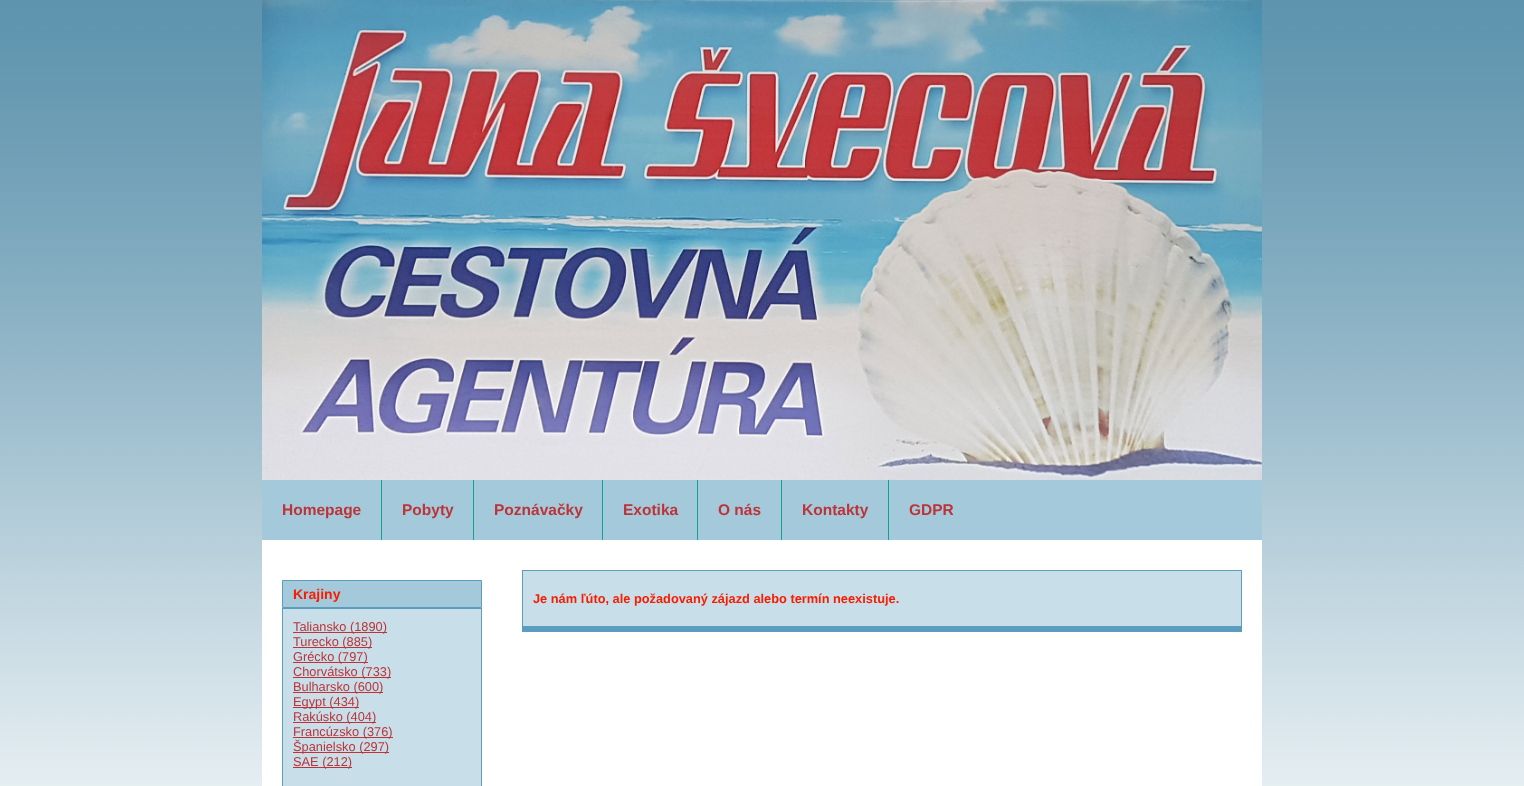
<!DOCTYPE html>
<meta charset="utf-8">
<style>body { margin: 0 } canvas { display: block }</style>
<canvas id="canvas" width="1524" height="786"></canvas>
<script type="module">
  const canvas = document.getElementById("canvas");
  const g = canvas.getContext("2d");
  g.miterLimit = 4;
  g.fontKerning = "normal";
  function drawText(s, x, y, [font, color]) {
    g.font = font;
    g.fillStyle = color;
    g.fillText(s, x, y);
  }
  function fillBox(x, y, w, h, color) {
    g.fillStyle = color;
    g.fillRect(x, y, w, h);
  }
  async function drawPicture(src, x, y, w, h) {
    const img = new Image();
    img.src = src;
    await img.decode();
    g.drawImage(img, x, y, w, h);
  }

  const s1 = ["bold 15.5px Liberation Sans", "#BC3438"];
  const s2 = ["bold 14px Liberation Sans", "#F91D00"];
  const s3 = ["12.8px Liberation Sans", "#BC3438"];
  const s4 = ["bold 12.8px Liberation Sans", "#F91D00"];

  fillBox(0, 0, 1524, 786, "#FFFFFF");
  await drawPicture("pic1.png", 0, 0, 1524, 786);
  await drawPicture("pic2.png", 262, 0, 1000, 480);
  fillBox(262, 480, 1000, 60, "#A4C9DB");
  drawText("Homepage", 282, 515, s1);
  fillBox(381, 480, 1, 60, "#0EA495");
  drawText("Pobyty", 402, 515, s1);
  fillBox(473, 480, 1, 60, "#0EA495");
  drawText("Poznávačky", 494, 515, s1);
  fillBox(602, 480, 1, 60, "#0EA495");
  drawText("Exotika", 623, 515, s1);
  fillBox(697, 480, 1, 60, "#0EA495");
  drawText("O nás", 718, 515, s1);
  fillBox(781, 480, 1, 60, "#0EA495");
  drawText("Kontakty", 802, 515, s1);
  fillBox(888, 480, 1, 60, "#0EA495");
  drawText("GDPR", 909, 515, s1);
  fillBox(262, 540, 1000, 246, "#FFFFFF");
  g.fillStyle = "#A4C9DB";
  g.beginPath();
  g.rect(282.5, 580.5, 199, 27);
  g.fill();
  g.strokeStyle = "#5B9DBE";
  g.stroke();
  drawText("Krajiny", 293, 599, s2);
  fillBox(283, 609, 198, 177, "#C8DEE9");
  fillBox(282, 608, 200, 1, "#5B9DBE");
  fillBox(481, 608, 1, 178, "#5B9DBE");
  fillBox(282, 608, 1, 178, "#5B9DBE");
  fillBox(293, 632, 94, 1, "#BC3438");
  drawText("Taliansko (1890)", 293, 631, s3);
  fillBox(293, 647, 79, 1, "#BC3438");
  drawText("Turecko (885)", 293, 646, s3);
  fillBox(293, 662, 75, 1, "#BC3438");
  drawText("Grécko (797)", 293, 661, s3);
  fillBox(293, 677, 98, 1, "#BC3438");
  drawText("Chorvátsko (733)", 293, 676, s3);
  fillBox(293, 692, 90, 1, "#BC3438");
  drawText("Bulharsko (600)", 293, 691, s3);
  fillBox(293, 707, 66, 1, "#BC3438");
  drawText("Egypt (434)", 293, 706, s3);
  fillBox(293, 722, 83, 1, "#BC3438");
  drawText("Rakúsko (404)", 293, 721, s3);
  fillBox(293, 737, 100, 1, "#BC3438");
  drawText("Francúzsko (376)", 293, 736, s3);
  fillBox(293, 752, 96, 1, "#BC3438");
  drawText("Španielsko (297)", 293, 751, s3);
  fillBox(293, 767, 59, 1, "#BC3438");
  drawText("SAE (212)", 293, 766, s3);
  fillBox(523, 571, 718, 55, "#C8DEE9");
  fillBox(522, 570, 720, 1, "#5B9DBE");
  fillBox(1241, 570, 1, 62, "#5B9DBE");
  fillBox(522, 626, 720, 6, "#5B9DBE");
  fillBox(522, 570, 1, 62, "#5B9DBE");
  drawText("Je nám ľúto, ale požadovaný zájazd alebo termín neexistuje.", 533, 603, s4);
</script>
